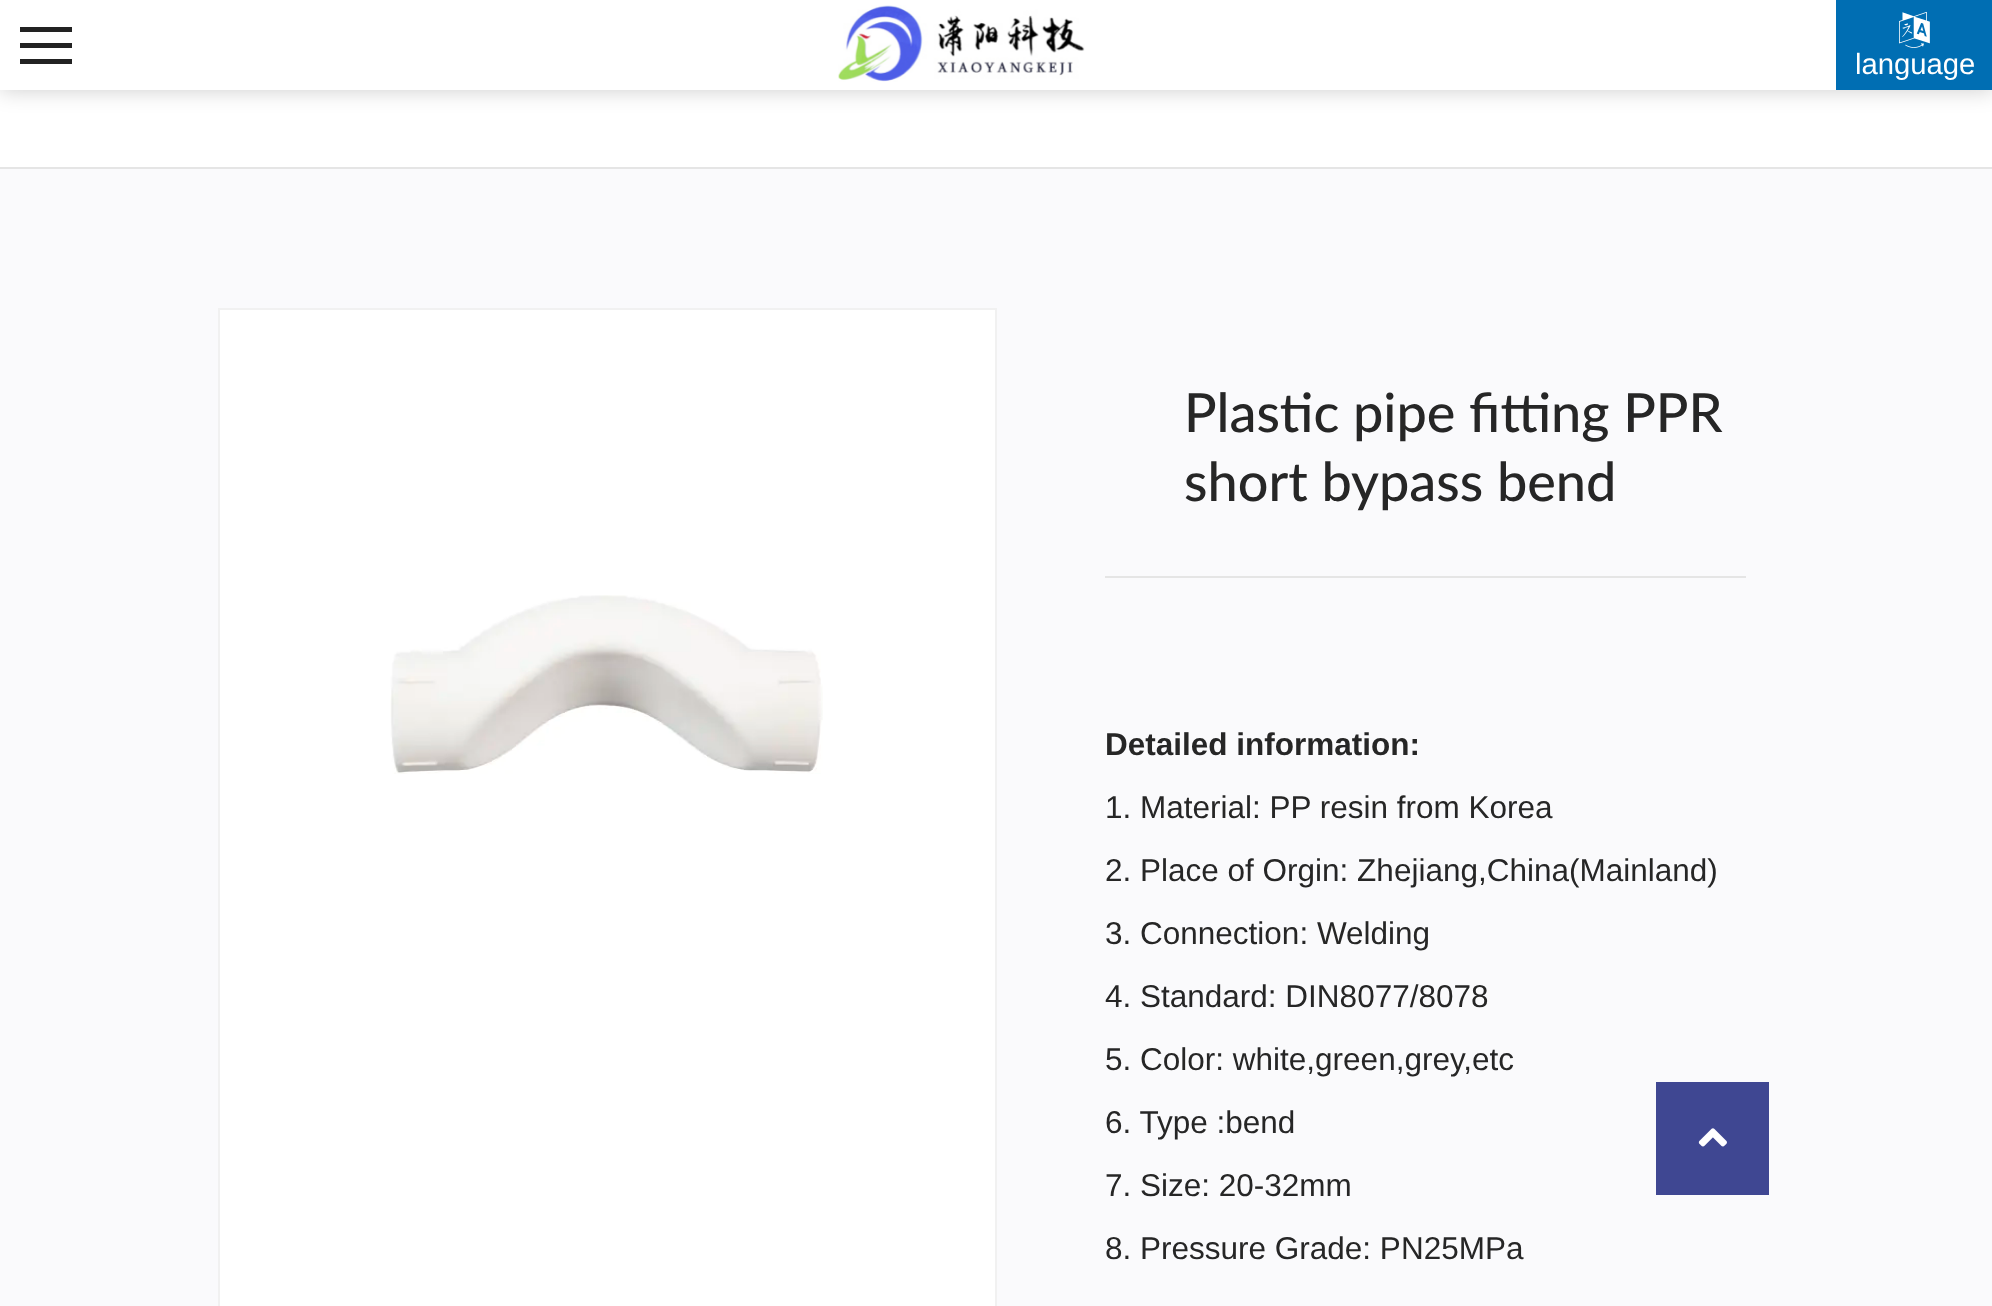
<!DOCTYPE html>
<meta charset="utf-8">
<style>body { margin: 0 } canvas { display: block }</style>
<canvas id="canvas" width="1992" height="1306"></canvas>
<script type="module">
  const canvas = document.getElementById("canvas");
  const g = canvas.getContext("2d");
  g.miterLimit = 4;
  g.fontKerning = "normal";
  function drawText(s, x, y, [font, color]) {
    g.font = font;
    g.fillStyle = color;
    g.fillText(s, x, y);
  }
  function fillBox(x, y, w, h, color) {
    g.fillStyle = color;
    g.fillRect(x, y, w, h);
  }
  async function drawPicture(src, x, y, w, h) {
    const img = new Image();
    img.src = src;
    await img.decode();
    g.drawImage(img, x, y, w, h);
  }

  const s1 = ["29.25px Liberation Sans", "#FFFFFF"];
  const s2 = ["500 54px Lato", "#262626"];
  const s3 = ["bold 31.5px Liberation Sans", "#262626"];
  const s4 = ["31.5px Liberation Sans", "#262626"];

  fillBox(0, 0, 1992, 1306, "#FFFFFF");
  g.fillStyle = "rgba(0, 0, 0, 0.2)";
  g.filter = "blur(11px)";
  g.beginPath();
  g.rect(0, 0, 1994, 90);
  g.fill();
  g.filter = "none";
  fillBox(0, 0, 1836, 90, "#FFFFFF");
  fillBox(20, 27, 52, 5, "#222222");
  fillBox(20, 43, 52, 5, "#222222");
  fillBox(20, 59, 52, 5, "#222222");
  await drawPicture("pic1.png", 838, 5, 247, 77);
  fillBox(1836, 0, 156, 90, "#006EB3");
  await drawPicture("pic2.png", 1899, 11, 31, 37);
  drawText("language", 1855, 74, s1);
  fillBox(0, 167, 1992, 2, "#E5E5E5");
  fillBox(0, 169, 1992, 1137, "#FAFAFC");
  g.fillStyle = "#FFFFFF";
  g.beginPath();
  g.rect(219, 309, 777, 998);
  g.fill();
  g.strokeStyle = "#F1F1F1";
  g.lineWidth = 2;
  g.stroke();
  await drawPicture("pic3.png", 390, 595, 433, 179);
  fillBox(1105, 576, 641, 2, "#E5E5E5");
  drawText("Plastic pipe fitting PPR", 1184, 432, s2);
  drawText("short bypass bend", 1184, 501, s2);
  drawText("Detailed information:", 1105, 755, s3);
  drawText("1. Material: PP resin from Korea", 1105, 818, s4);
  drawText("2. Place of Orgin: Zhejiang,China(Mainland)", 1105, 881, s4);
  drawText("3. Connection: Welding", 1105, 944, s4);
  drawText("4. Standard: DIN8077/8078", 1105, 1007, s4);
  drawText("5. Color: white,green,grey,etc", 1105, 1070, s4);
  drawText("6. Type :bend", 1105, 1133, s4);
  drawText("7. Size: 20-32mm", 1105, 1196, s4);
  drawText("8. Pressure Grade: PN25MPa", 1105, 1259, s4);
  fillBox(1656, 1082, 113, 113, "#3F4792");
  await drawPicture("pic4.png", 1698, 1128, 29, 19);
</script>
